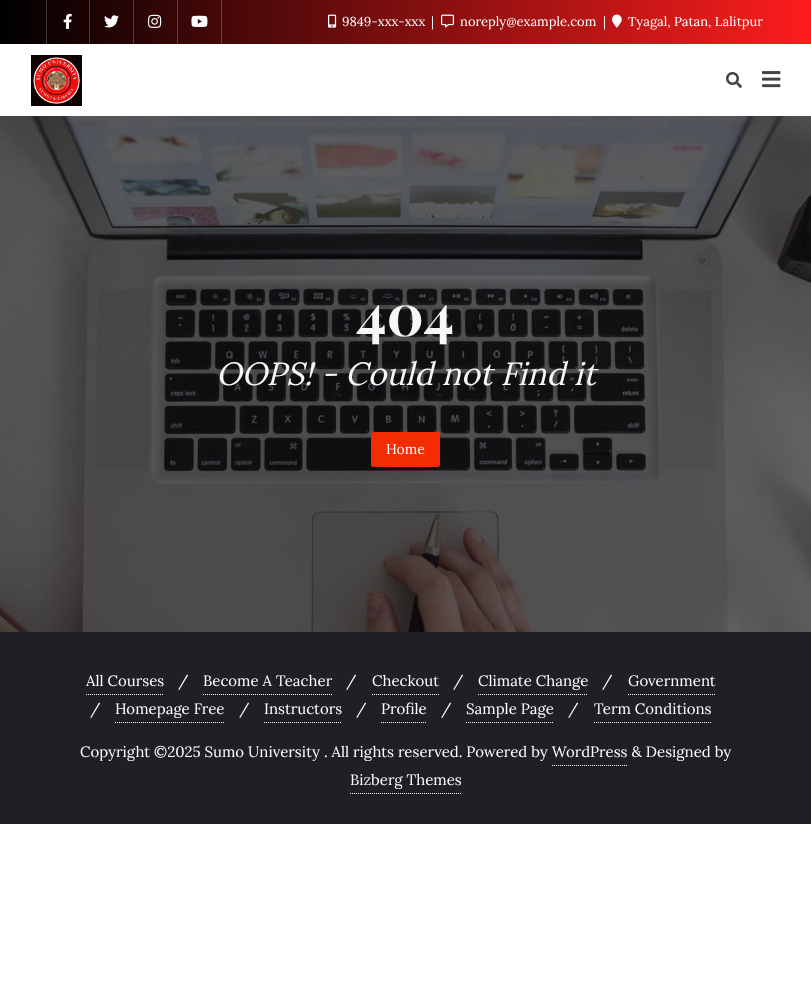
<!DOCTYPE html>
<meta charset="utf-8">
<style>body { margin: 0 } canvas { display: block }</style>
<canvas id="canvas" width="811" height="995"></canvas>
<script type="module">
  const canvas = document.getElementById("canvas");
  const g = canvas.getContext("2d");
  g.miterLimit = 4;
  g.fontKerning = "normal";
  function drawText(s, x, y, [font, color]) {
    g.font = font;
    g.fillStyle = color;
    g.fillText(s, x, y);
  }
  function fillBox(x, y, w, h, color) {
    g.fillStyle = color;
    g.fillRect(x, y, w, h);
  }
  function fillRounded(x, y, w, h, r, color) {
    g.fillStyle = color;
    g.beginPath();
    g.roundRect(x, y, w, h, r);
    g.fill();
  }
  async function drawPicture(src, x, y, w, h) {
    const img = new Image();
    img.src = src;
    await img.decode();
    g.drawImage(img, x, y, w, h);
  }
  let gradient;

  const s1 = ["13px Lora", "#FFFFFF"];
  const s2 = ["bold 58px Playfair Display", "#F7F7F7"];
  const s3 = ["italic 32px Lora", "#F7F7F7"];
  const s4 = ["14px Lora", "#FFFFFF"];
  const s5 = ["15px Lora", "#FFFFFF"];

  fillBox(0, 0, 811, 995, "#FFFFFF");
  gradient = g.createLinearGradient(0, 22, 811, 22);
  gradient.addColorStop(0, "#000000");
  gradient.addColorStop(1, "#FD1D1D");
  g.fillStyle = gradient;
  g.fillRect(0, 0, 811, 44);
  fillBox(89, 0, 1, 44, "#4E3A3A");
  fillBox(46, 0, 1, 44, "#443A3A");
  await drawPicture("pic1.png", 63, 13, 9, 16);
  fillBox(133, 0, 1, 44, "#593C3C");
  await drawPicture("pic2.png", 104, 15, 15, 13);
  fillBox(177, 0, 1, 44, "#633D3D");
  await drawPicture("pic3.png", 148, 14, 14, 14);
  fillBox(221, 0, 1, 44, "#6E3E3E");
  await drawPicture("pic4.png", 191, 15, 17, 12);
  await drawPicture("pic5.png", 328, 14, 9, 14);
  drawText("9849-xxx-xxx", 342, 26, s1);
  drawText("|", 431, 26, s1);
  await drawPicture("pic6.png", 441, 14, 13, 14);
  drawText("noreply@example.com", 460, 26, s1);
  drawText("|", 603, 26, s1);
  await drawPicture("pic7.png", 612, 14, 10, 14);
  drawText("Tyagal, Patan, Lalitpur", 628, 26, s1);
  await drawPicture("pic8.png", 31, 55, 51, 51);
  await drawPicture("pic9.png", 726, 72, 16, 16);
  await drawPicture("pic10.png", 762, 71, 19, 17);
  await drawPicture("pic11.png", 0, 116, 811, 516);
  drawText("404", 356, 336, s2);
  drawText("OOPS! - Could not Find it", 216, 385, s3);
  fillRounded(371, 432, 69, 35, 2, "#F42C04");
  drawText("Home", 386, 454, s4);
  fillBox(0, 632, 811, 192, "#1F2024");
  g.beginPath();
  g.moveTo(86, 694.5);
  g.lineTo(164, 694.5);
  g.strokeStyle = "#FFFFFF";
  g.setLineDash([1, 1]);
  g.stroke();
  drawText("All Courses", 86, 686, s5);
  drawText("/", 178, 686, s5);
  g.beginPath();
  g.moveTo(203, 694.5);
  g.lineTo(332, 694.5);
  g.stroke();
  drawText("Become A Teacher", 203, 686, s5);
  drawText("/", 346, 686, s5);
  g.beginPath();
  g.moveTo(372, 694.5);
  g.lineTo(439, 694.5);
  g.stroke();
  drawText("Checkout", 372, 686, s5);
  drawText("/", 453, 686, s5);
  g.beginPath();
  g.moveTo(478, 694.5);
  g.lineTo(588, 694.5);
  g.stroke();
  drawText("Climate Change", 478, 686, s5);
  drawText("/", 602, 686, s5);
  g.beginPath();
  g.moveTo(628, 694.5);
  g.lineTo(715, 694.5);
  g.stroke();
  drawText("Government", 628, 686, s5);
  drawText("/", 90, 714, s5);
  g.beginPath();
  g.moveTo(115, 722.5);
  g.lineTo(225, 722.5);
  g.stroke();
  drawText("Homepage Free", 115, 714, s5);
  drawText("/", 239, 714, s5);
  g.beginPath();
  g.moveTo(264, 722.5);
  g.lineTo(342, 722.5);
  g.stroke();
  drawText("Instructors", 264, 714, s5);
  drawText("/", 356, 714, s5);
  g.beginPath();
  g.moveTo(381, 722.5);
  g.lineTo(427, 722.5);
  g.stroke();
  drawText("Profile", 381, 714, s5);
  drawText("/", 441, 714, s5);
  g.beginPath();
  g.moveTo(466, 722.5);
  g.lineTo(554, 722.5);
  g.stroke();
  drawText("Sample Page", 466, 714, s5);
  drawText("/", 568, 714, s5);
  g.beginPath();
  g.moveTo(594, 722.5);
  g.lineTo(711, 722.5);
  g.stroke();
  drawText("Term Conditions", 594, 714, s5);
  drawText("Copyright ©2025 Sumo University . All rights reserved. Powered by WordPress & Designed by", 80, 757, s5);
  g.beginPath();
  g.moveTo(552, 765.5);
  g.lineTo(627, 765.5);
  g.stroke();
  g.beginPath();
  g.moveTo(350, 793.5);
  g.lineTo(461, 793.5);
  g.stroke();
  drawText("Bizberg Themes", 350, 785, s5);
</script>
